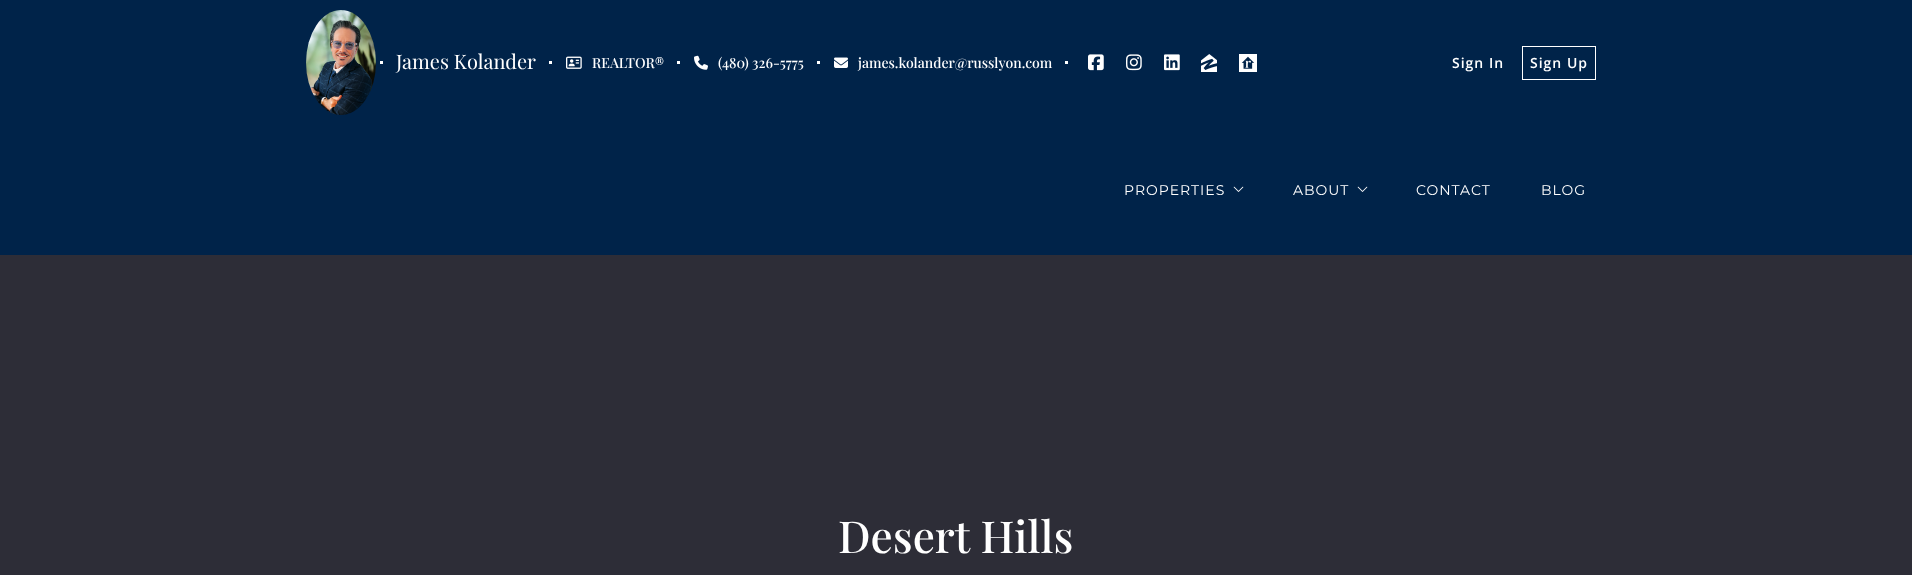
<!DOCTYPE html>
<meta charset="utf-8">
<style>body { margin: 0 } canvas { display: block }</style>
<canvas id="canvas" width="1912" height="575"></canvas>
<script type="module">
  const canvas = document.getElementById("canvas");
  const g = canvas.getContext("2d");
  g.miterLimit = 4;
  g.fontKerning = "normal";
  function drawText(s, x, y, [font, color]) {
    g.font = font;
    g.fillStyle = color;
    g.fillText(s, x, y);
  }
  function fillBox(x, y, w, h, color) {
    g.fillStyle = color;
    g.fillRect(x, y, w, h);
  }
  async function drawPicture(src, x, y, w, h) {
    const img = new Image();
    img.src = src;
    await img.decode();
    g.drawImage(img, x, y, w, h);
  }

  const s1 = ["20px Playfair Display", "#FFFFFF"];
  const s2 = ["500 14px Playfair Display", "#FFFFFF"];
  const s3 = ["600 14px Open Sans", "#FFFFFF"];
  const s4 = ["14px Montserrat", "#FFFFFF"];
  const s5 = ["500 44px Playfair Display", "#FFFFFF"];

  fillBox(0, 0, 1912, 575, "#002349");
  await drawPicture("pic1.png", 306, 10, 70, 105);
  fillBox(380, 61, 3, 3, "#FFFFFF");
  drawText("James Kolander", 396, 69, s1);
  fillBox(549, 61, 3, 3, "#FFFFFF");
  await drawPicture("pic2.png", 566, 56, 16, 13);
  drawText("REALTOR®", 592, 68, s2);
  fillBox(677, 61, 3, 3, "#FFFFFF");
  await drawPicture("pic3.png", 694, 55, 14, 15);
  drawText("(480) 326-5775", 718, 68, s2);
  fillBox(817, 61, 3, 3, "#FFFFFF");
  await drawPicture("pic4.png", 834, 57, 14, 11);
  drawText("james.kolander@russlyon.com", 858, 68, s2);
  fillBox(1065, 61, 3, 3, "#FFFFFF");
  await drawPicture("pic5.png", 1088, 54, 16, 17);
  await drawPicture("pic6.png", 1126, 54, 16, 17);
  await drawPicture("pic7.png", 1164, 54, 16, 17);
  await drawPicture("pic8.png", 1201, 54, 16, 18);
  await drawPicture("pic9.png", 1239, 54, 18, 18);
  g.letterSpacing = "1px";
  drawText("Sign In", 1452, 68, s3);
  g.strokeStyle = "#FFFFFF";
  g.strokeRect(1522.5, 46.5, 73, 33);
  drawText("Sign Up", 1530, 68, s3);
  drawText("PROPERTIES", 1124, 195, s4);
  await drawPicture("pic10.png", 1233, 186, 11, 6);
  drawText("ABOUT", 1293, 195, s4);
  await drawPicture("pic10.png", 1357, 186, 11, 6);
  drawText("CONTACT", 1416, 195, s4);
  drawText("BLOG", 1541, 195, s4);
  fillBox(0, 255, 1912, 320, "#2D2D37");
  g.letterSpacing = "0px";
  drawText("Desert Hills", 838, 553, s5);
</script>
